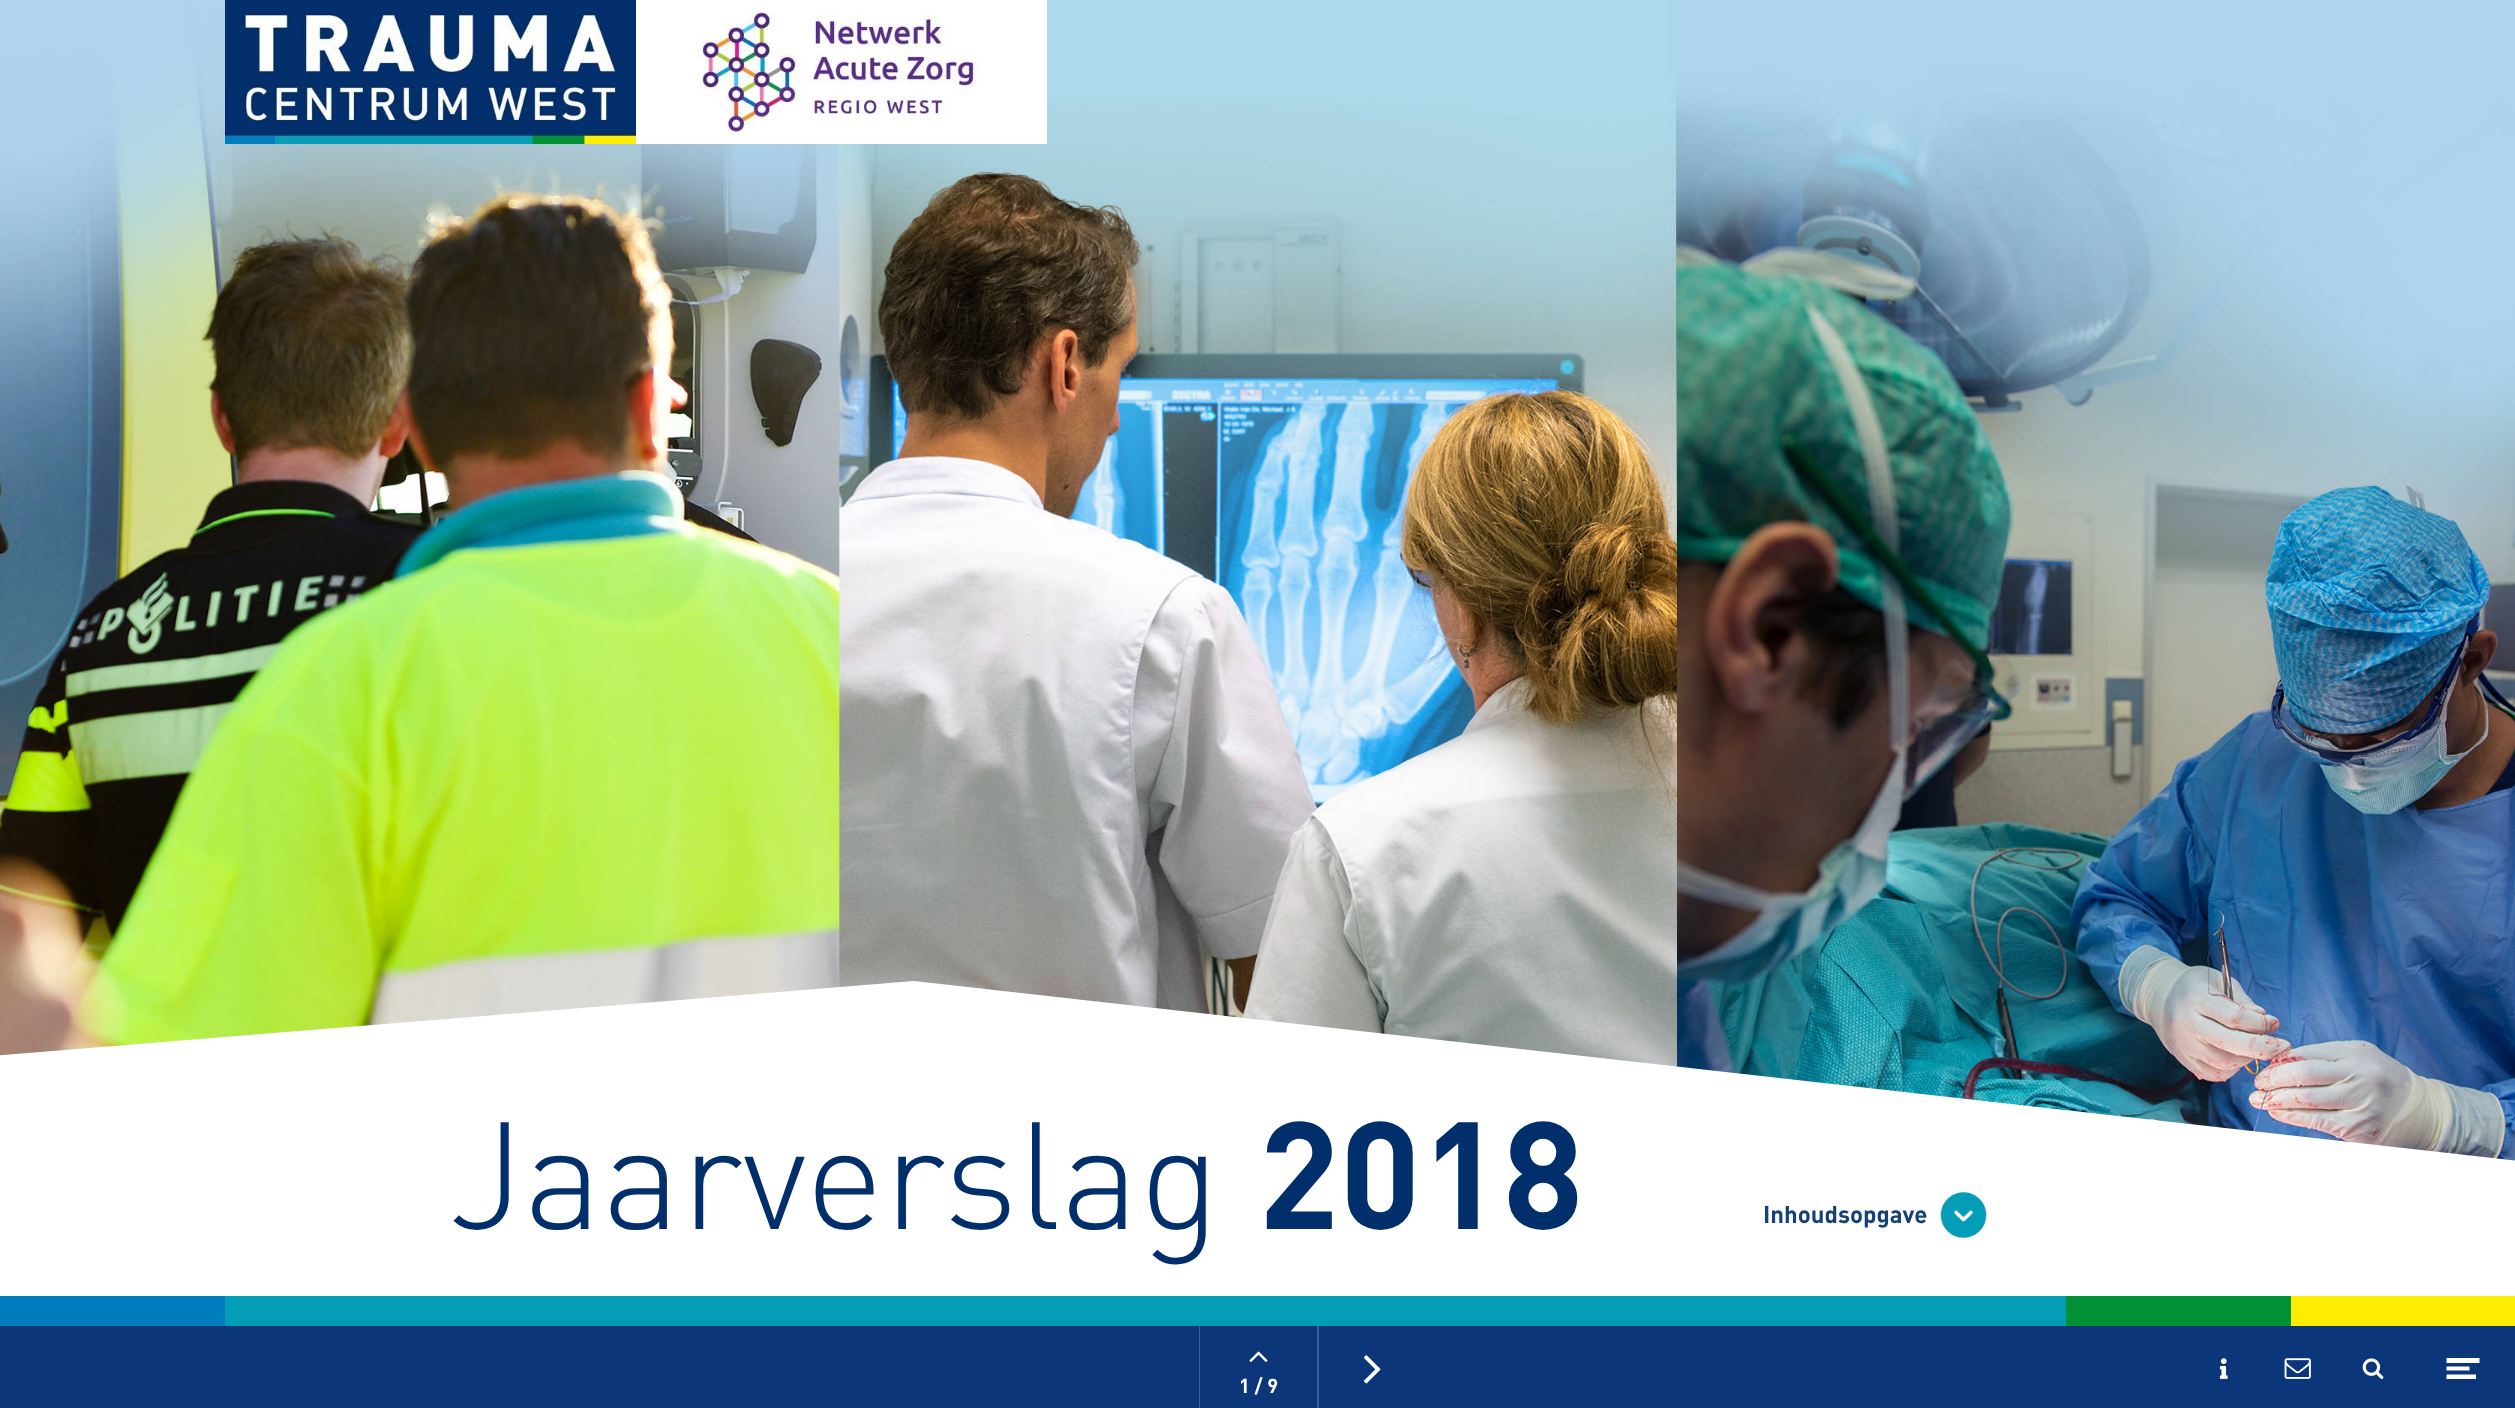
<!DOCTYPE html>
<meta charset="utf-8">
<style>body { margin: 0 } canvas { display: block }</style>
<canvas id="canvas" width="2515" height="1408"></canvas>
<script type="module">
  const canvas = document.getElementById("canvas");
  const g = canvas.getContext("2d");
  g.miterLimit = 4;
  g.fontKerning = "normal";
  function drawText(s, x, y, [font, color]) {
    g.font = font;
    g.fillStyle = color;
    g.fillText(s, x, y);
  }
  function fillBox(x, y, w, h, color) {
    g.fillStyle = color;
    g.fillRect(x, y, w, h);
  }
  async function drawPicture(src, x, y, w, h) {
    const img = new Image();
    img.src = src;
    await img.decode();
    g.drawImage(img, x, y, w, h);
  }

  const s1 = ["300 150px DIN", "#002F6B"];
  const s2 = ["bold 150px DIN", "#002F6B"];
  const s3 = ["bold 24px DIN", "#164178"];
  const s4 = ["bold 20px DIN", "#FFFFFF"];

  fillBox(0, 0, 2515, 1408, "#FFFFFF");
  await drawPicture("pic1.png", 0, 0, 2515, 1161);
  await drawPicture("pic2.png", 225, 0, 411, 144);
  await drawPicture("pic3.png", 636, 0, 411, 144);
  g.beginPath();
  g.moveTo(-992, 1136);
  g.lineTo(914, 981);
  g.lineTo(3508, 1272);
  g.lineTo(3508, 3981);
  g.lineTo(-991, 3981);
  g.closePath();
  g.fill("evenodd");
  drawText("Jaarverslag", 449, 1229, s1);
  drawText("2018", 1258, 1229, s2);
  drawText("Inhoudsopgave", 1763, 1223, s3);
  await drawPicture("pic4.png", 1940, 1192, 47, 46);
  fillBox(0, 1296, 225, 30, "#007DBC");
  fillBox(225, 1296, 1841, 30, "#049DB7");
  fillBox(2066, 1296, 225, 30, "#009036");
  fillBox(2291, 1296, 224, 30, "#FFED00");
  fillBox(0, 1326, 2515, 82, "#0C367A");
  await drawPicture("pic5.png", 2219, 1358, 9, 21);
  await drawPicture("pic6.png", 2284, 1358, 27, 21);
  await drawPicture("pic7.png", 2362, 1358, 22, 21);
  g.fillStyle = "#FFFFFF";
  g.beginPath();
  g.moveTo(2446.5, 1358);
  g.lineTo(2479.5, 1358);
  g.lineTo(2479.5, 1363);
  g.lineTo(2446.5, 1363);
  g.closePath();
  g.moveTo(2446.5, 1366.5);
  g.lineTo(2469.5, 1366.5);
  g.lineTo(2469.5, 1370.5);
  g.lineTo(2446.5, 1370.5);
  g.closePath();
  g.moveTo(2446.5, 1374.5);
  g.lineTo(2476, 1374.5);
  g.lineTo(2476, 1379);
  g.lineTo(2446.5, 1379);
  g.closePath();
  g.fill();
  fillBox(1199, 1326, 1, 82, "#3D5E95");
  fillBox(1317, 1326, 2, 82, "#3D5E95");
  await drawPicture("pic8.png", 1364, 1355, 17, 29);
  await drawPicture("pic9.png", 1249, 1351, 19, 11);
  drawText("1 / 9", 1239, 1393, s4);
</script>
